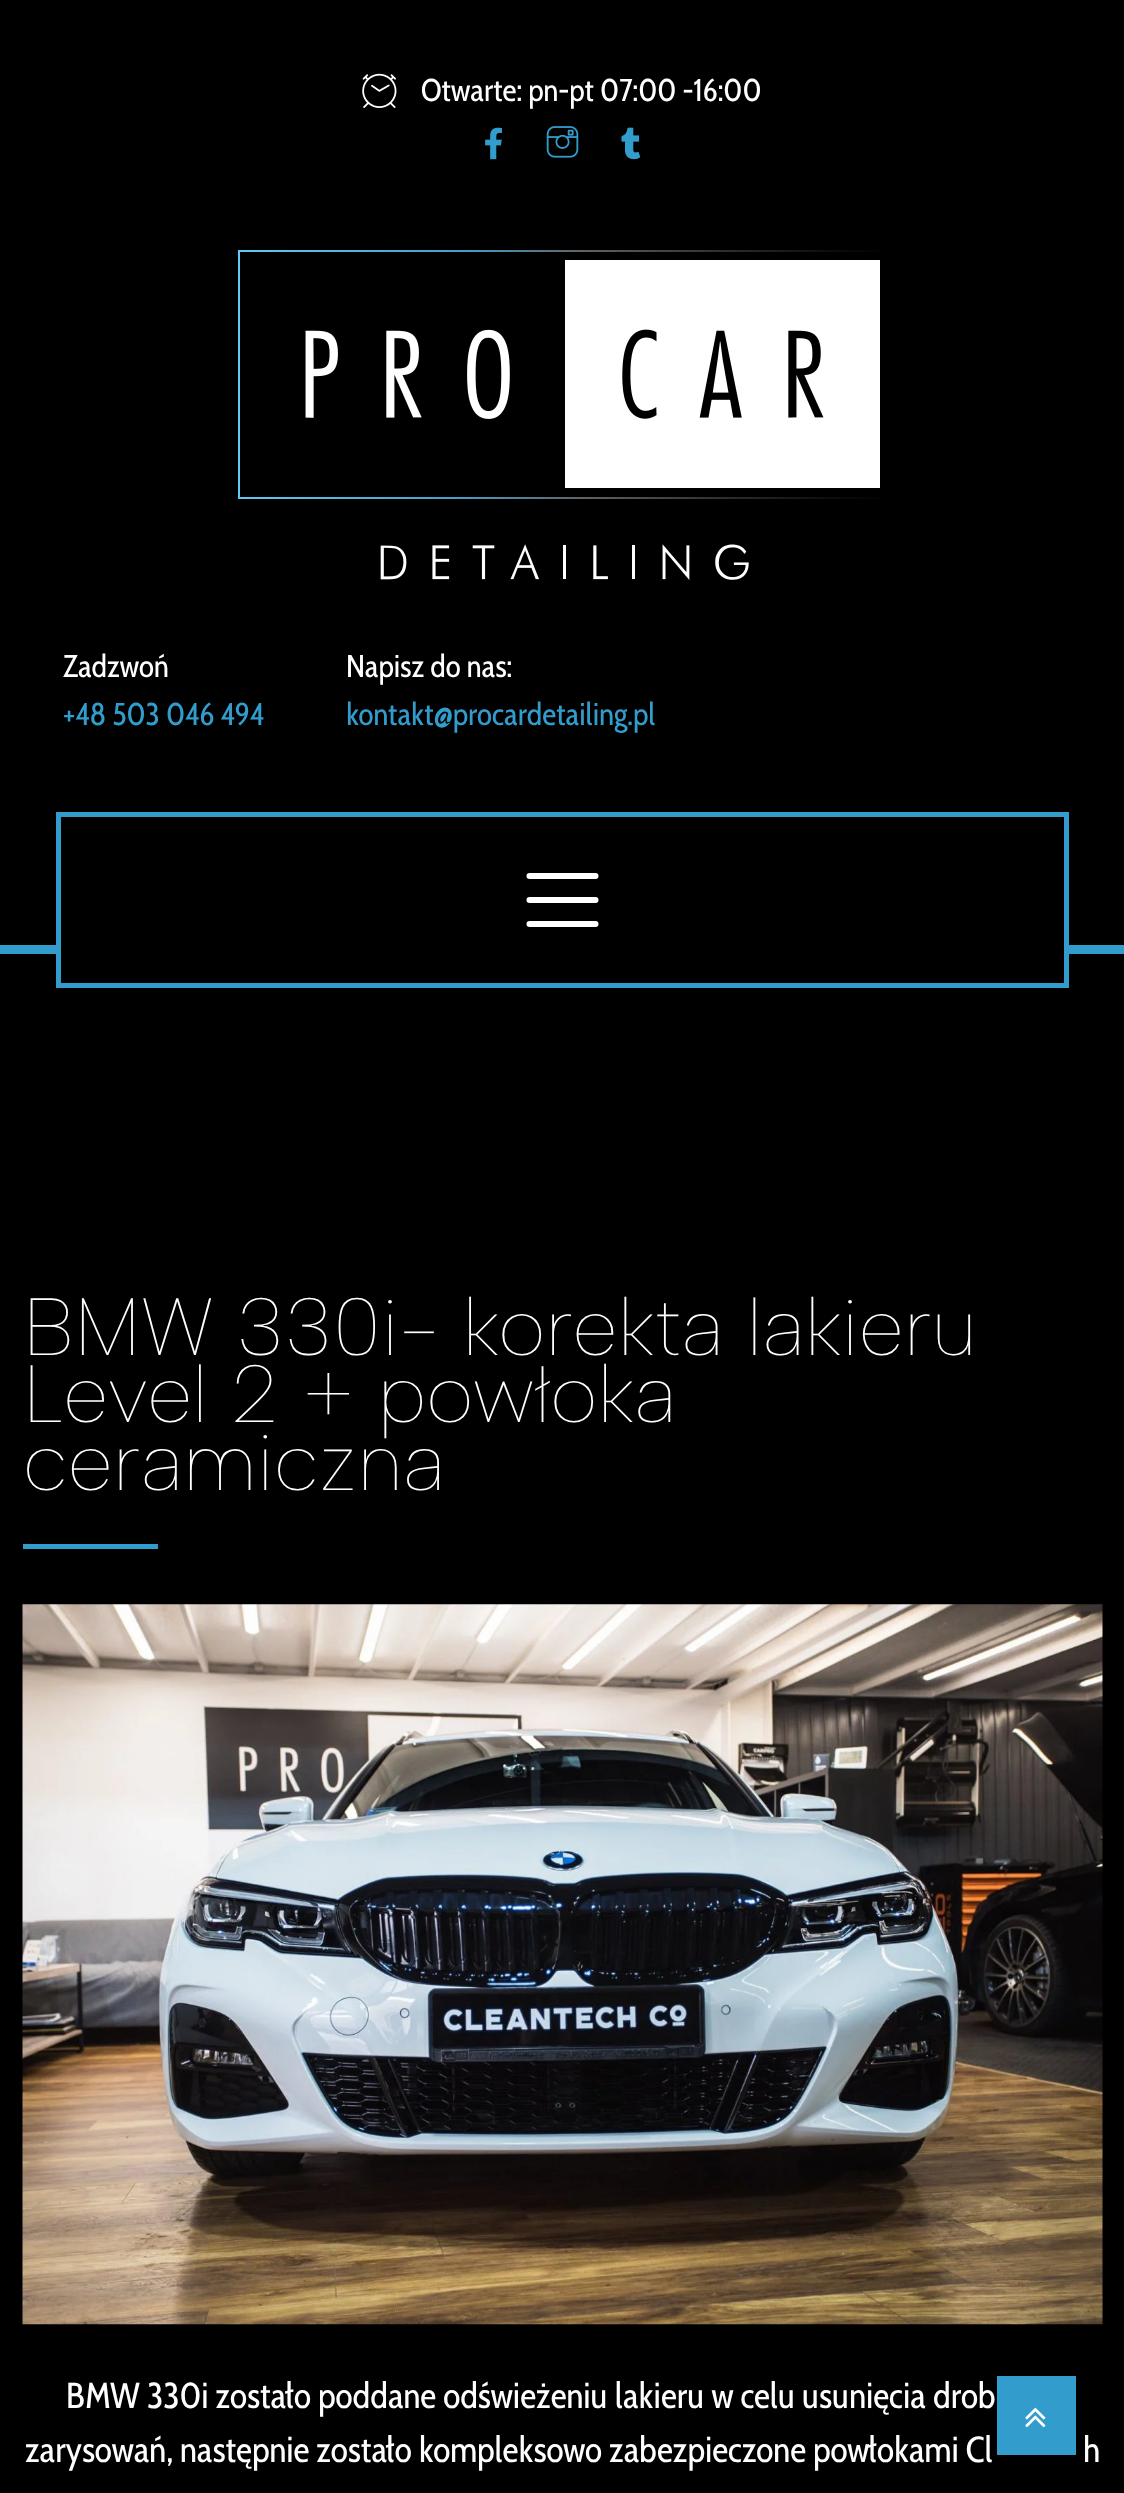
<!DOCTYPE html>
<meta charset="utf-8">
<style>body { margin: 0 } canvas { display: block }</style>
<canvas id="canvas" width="1124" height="2493"></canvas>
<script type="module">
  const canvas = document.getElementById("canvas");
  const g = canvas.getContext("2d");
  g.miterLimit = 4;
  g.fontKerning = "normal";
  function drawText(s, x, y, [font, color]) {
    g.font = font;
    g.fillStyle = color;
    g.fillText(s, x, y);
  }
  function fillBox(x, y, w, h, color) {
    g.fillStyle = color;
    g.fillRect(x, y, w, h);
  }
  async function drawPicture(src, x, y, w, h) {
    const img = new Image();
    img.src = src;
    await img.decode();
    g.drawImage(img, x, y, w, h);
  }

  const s1 = ["31.5px Cabin Condensed", "#FFFFFF"];
  const s2 = ["31.5px Cabin Condensed", "#329DCC"];
  const s3 = ["100 81px Albert Sans", "#FFFFFF"];
  const s4 = ["36px Cabin Condensed", "#FFFFFF"];

  fillBox(0, 0, 1124, 2493, "#000000");
  await drawPicture("pic1.png", 362, 73, 35, 35);
  drawText("Otwarte: pn-pt 07:00 -16:00", 421, 101, s1);
  await drawPicture("pic2.png", 485, 127, 18, 33);
  await drawPicture("pic3.png", 546, 126, 33, 32);
  await drawPicture("pic4.png", 621, 127, 20, 33);
  await drawPicture("pic5.png", 238, 250, 642, 330);
  drawText("Zadzwoń", 63, 677, s1);
  drawText("+48 503 046 494", 63, 725, s2);
  drawText("Napisz do nas:", 346, 677, s1);
  drawText("kontakt@procardetailing.pl", 346, 725, s2);
  fillBox(0, 945, 1124, 9, "#329DCD");
  fillBox(61, 945, 1003, 9, "#000000");
  g.strokeStyle = "#329DCD";
  g.lineWidth = 5;
  g.strokeRect(58.5, 814.5, 1008, 171);
  g.beginPath();
  g.moveTo(529.5, 876);
  g.lineTo(595.5, 876);
  g.moveTo(529.5, 900);
  g.lineTo(595.5, 900);
  g.moveTo(529.5, 924);
  g.lineTo(595.5, 924);
  g.strokeStyle = "#FFFFFF";
  g.lineWidth = 6;
  g.lineCap = "round";
  g.stroke();
  drawText("BMW 330i- korekta lakieru", 23, 1355, s3);
  drawText("Level 2 + powłoka", 23, 1422, s3);
  drawText("ceramiczna", 23, 1490, s3);
  fillBox(23, 1544, 135, 5, "#329DCD");
  await drawPicture("pic6.png", 22, 1604, 1081, 721);
  drawText("BMW 330i zostało poddane odświeżeniu lakieru w celu usunięcia drob", 66, 2408, s4);
  drawText("zarysowań, następnie zostało kompleksowo zabezpieczone powłokami Cl", 25, 2462, s4);
  drawText("h", 1083, 2462, s4);
  fillBox(997, 2376, 79, 79, "#329DCD");
  await drawPicture("pic7.png", 1025, 2407, 21, 21);
</script>
